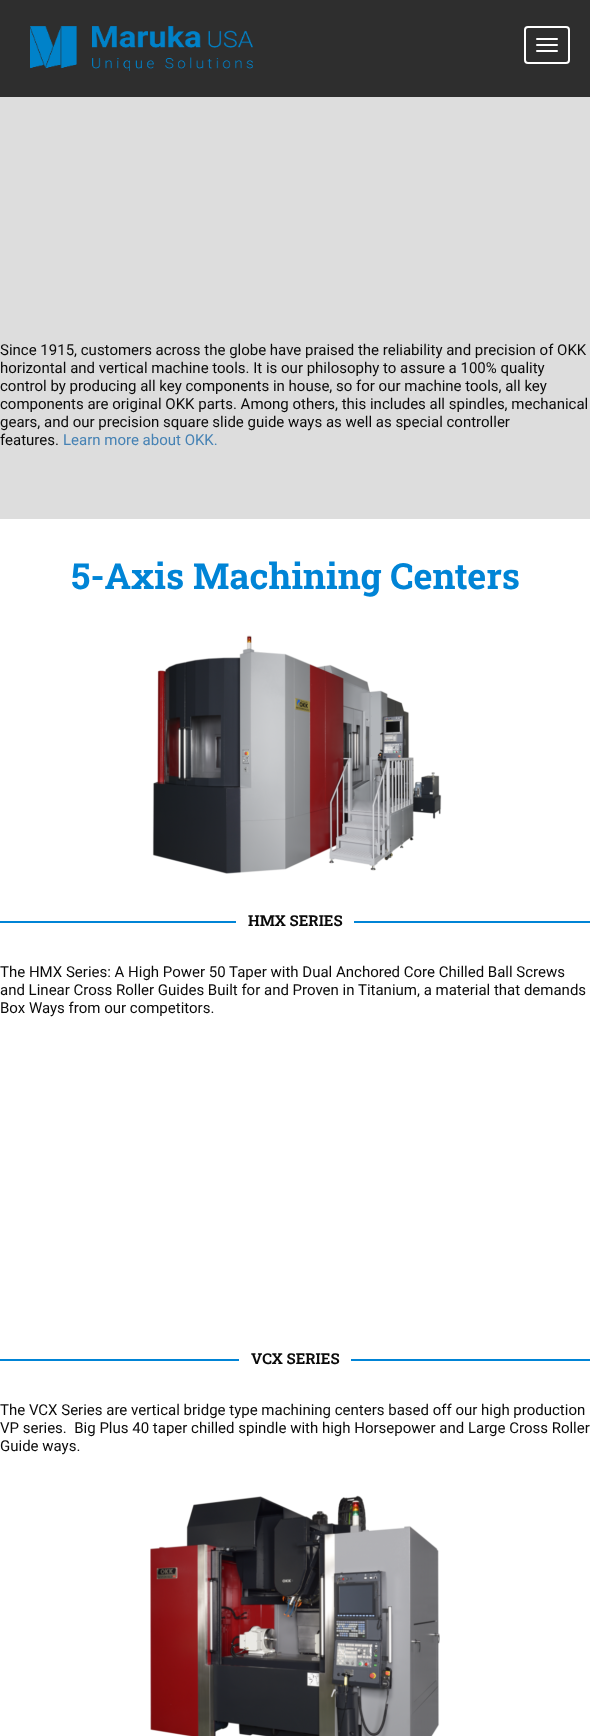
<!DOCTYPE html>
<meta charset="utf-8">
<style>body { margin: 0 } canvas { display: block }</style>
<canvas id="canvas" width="590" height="1736"></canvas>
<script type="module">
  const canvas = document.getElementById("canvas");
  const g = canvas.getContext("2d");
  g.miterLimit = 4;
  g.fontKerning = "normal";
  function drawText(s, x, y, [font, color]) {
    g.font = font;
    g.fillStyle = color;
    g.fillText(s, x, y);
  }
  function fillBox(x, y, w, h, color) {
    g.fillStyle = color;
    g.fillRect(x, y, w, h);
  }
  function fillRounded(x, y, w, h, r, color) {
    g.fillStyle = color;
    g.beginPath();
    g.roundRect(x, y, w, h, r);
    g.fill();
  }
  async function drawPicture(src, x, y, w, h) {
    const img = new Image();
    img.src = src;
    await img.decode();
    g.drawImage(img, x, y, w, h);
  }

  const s1 = ["15px Roboto", "#0A0A0A"];
  const s2 = ["15px Roboto", "#4682B4"];
  const s3 = ["bold 36px Roboto Slab", "#0084D6"];
  const s4 = ["bold 15px Roboto Slab", "#0A0A0A"];

  fillBox(0, 0, 590, 1736, "#FFFFFF");
  fillBox(0, 0, 590, 97, "#2E2E2E");
  await drawPicture("pic1.png", 30, 26, 223, 45);
  g.beginPath();
  g.roundRect(525, 27, 44, 36, 3);
  g.strokeStyle = "#FFFFFF";
  g.lineWidth = 2;
  g.stroke();
  fillRounded(536, 38, 22, 2, 1, "#FFFFFF");
  fillRounded(536, 44, 22, 2, 1, "#FFFFFF");
  fillRounded(536, 50, 22, 2, 1, "#FFFFFF");
  fillBox(0, 97, 590, 422, "#DDDDDD");
  drawText("Since 1915, customers across the globe have praised the reliability and precision of OKK", 0, 355, s1);
  drawText("horizontal and vertical machine tools. It is our philosophy to assure a 100% quality", 0, 373, s1);
  drawText("control by producing all key components in house, so for our machine tools, all key", 0, 391, s1);
  drawText("components are original OKK parts. Among others, this includes all spindles, mechanical", 0, 409, s1);
  drawText("gears, and our precision square slide guide ways as well as special controller", 0, 427, s1);
  drawText("features.", 0, 445, s1);
  drawText("Learn more about OKK.", 63, 445, s2);
  drawText("5-Axis Machining Centers", 71, 589, s3);
  await drawPicture("pic2.png", 152, 635, 290, 239);
  fillBox(0, 921, 236, 2, "#0084D6");
  drawText("HMX SERIES", 248, 926, s4);
  fillBox(354, 921, 236, 2, "#0084D6");
  drawText("The HMX Series: A High Power 50 Taper with Dual Anchored Core Chilled Ball Screws", 0, 977, s1);
  drawText("and Linear Cross Roller Guides Built for and Proven in Titanium, a material that demands", 0, 995, s1);
  drawText("Box Ways from our competitors.", 0, 1013, s1);
  fillBox(0, 1359, 239, 2, "#0084D6");
  drawText("VCX SERIES", 251, 1364, s4);
  fillBox(351, 1359, 239, 2, "#0084D6");
  drawText("The VCX Series are vertical bridge type machining centers based off our high production", 0, 1415, s1);
  drawText("VP series.  Big Plus 40 taper chilled spindle with high Horsepower and Large Cross Roller", 0, 1433, s1);
  drawText("Guide ways.", 0, 1451, s1);
  await drawPicture("pic3.png", 150, 1495, 290, 241);
</script>
